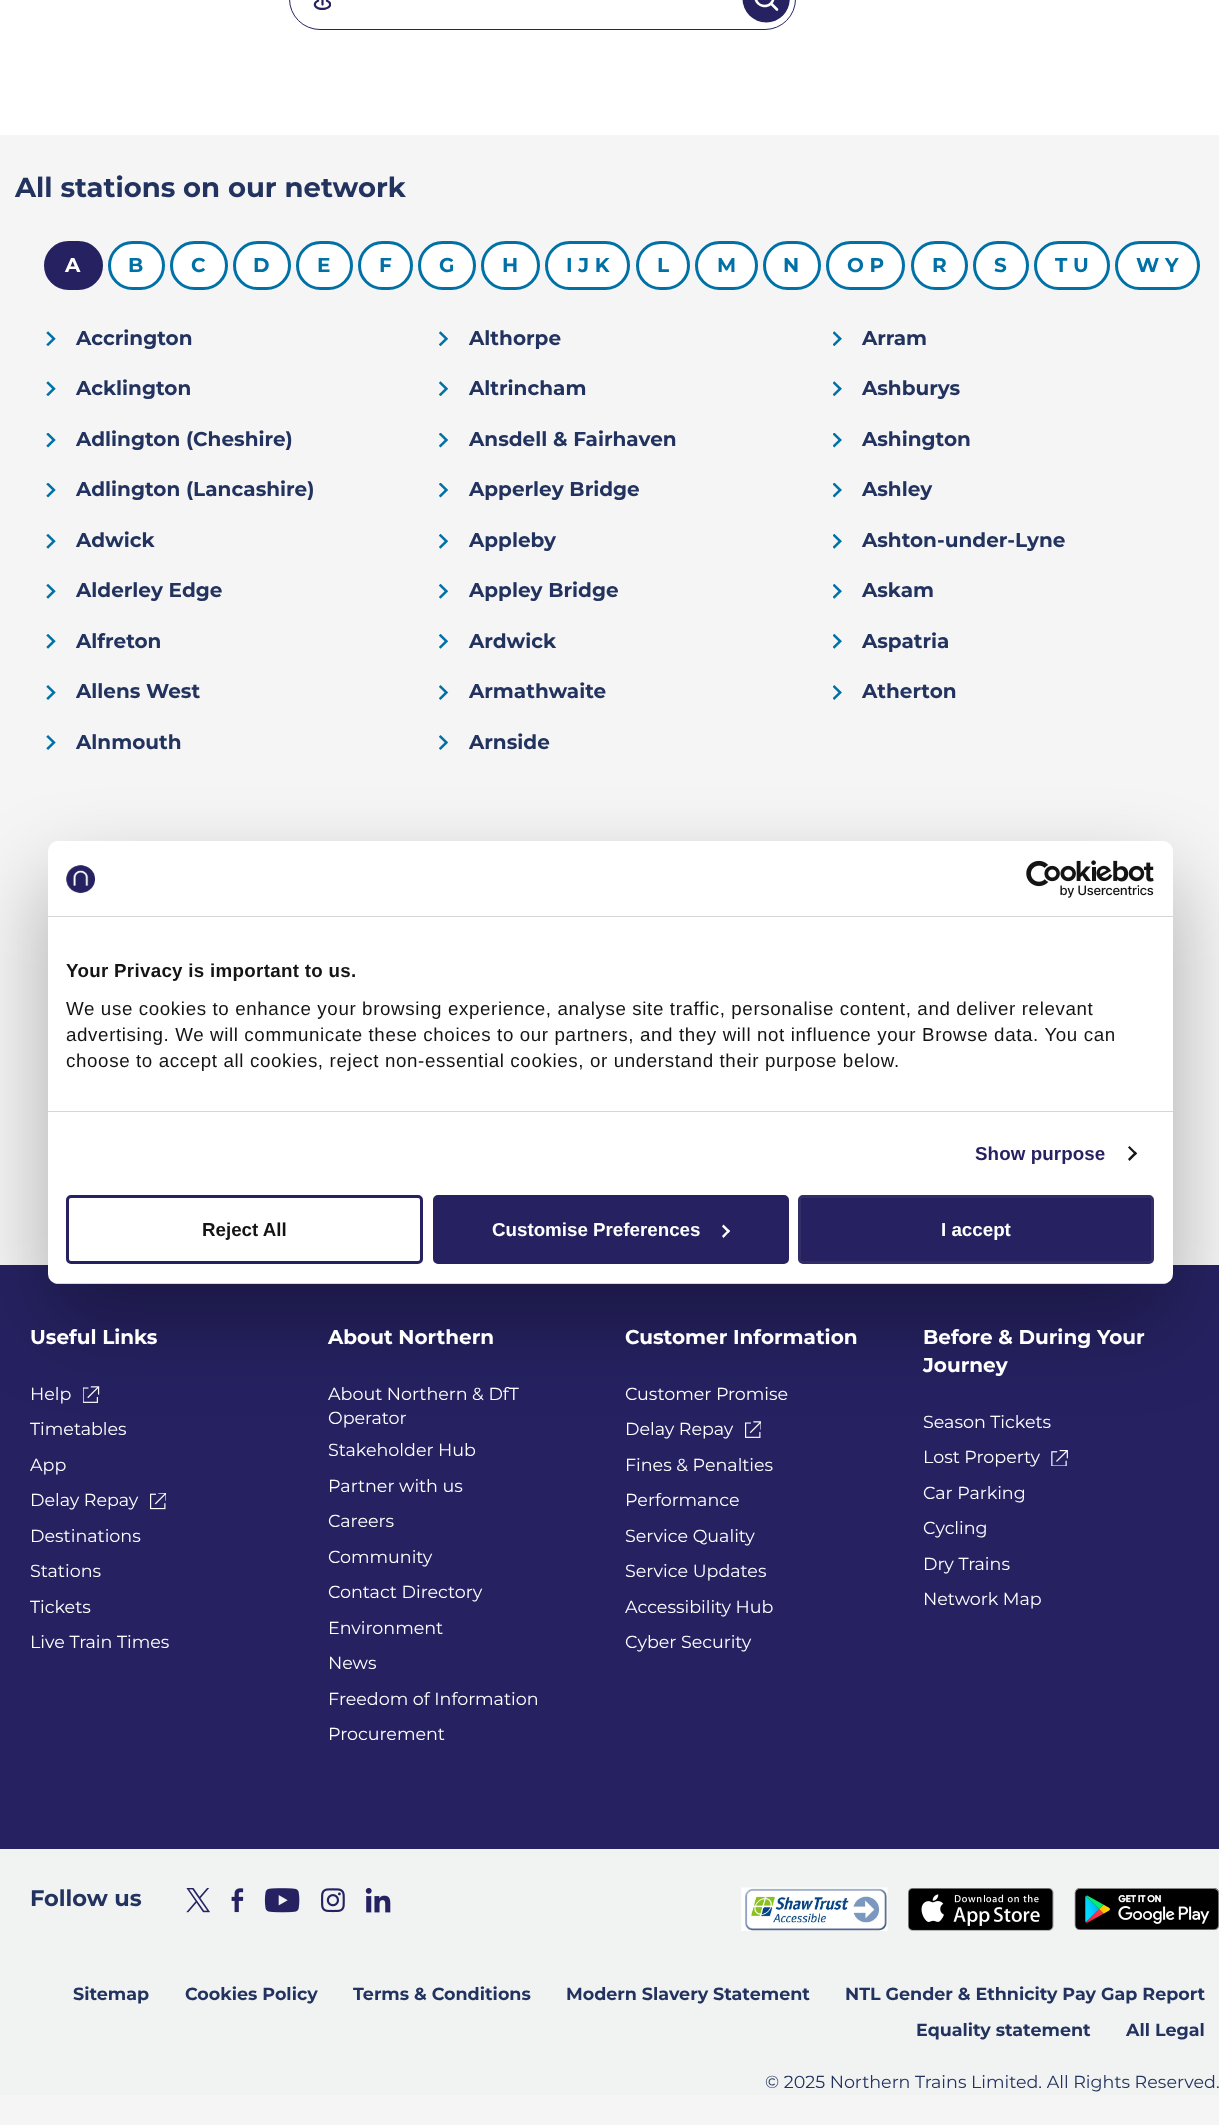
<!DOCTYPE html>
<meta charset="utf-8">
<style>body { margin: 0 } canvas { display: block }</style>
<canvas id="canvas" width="1219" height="2125"></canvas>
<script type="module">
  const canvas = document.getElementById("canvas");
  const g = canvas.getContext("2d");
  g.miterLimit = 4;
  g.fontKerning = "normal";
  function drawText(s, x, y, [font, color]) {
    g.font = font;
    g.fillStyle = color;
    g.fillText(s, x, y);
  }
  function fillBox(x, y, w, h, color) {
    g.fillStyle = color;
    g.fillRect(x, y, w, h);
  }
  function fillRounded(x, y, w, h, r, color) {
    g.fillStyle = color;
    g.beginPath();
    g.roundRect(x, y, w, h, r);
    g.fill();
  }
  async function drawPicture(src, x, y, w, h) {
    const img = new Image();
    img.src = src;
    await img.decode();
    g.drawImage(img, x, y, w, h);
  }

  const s1 = ["bold 27.5px Montserrat", "#23335F"];
  const s2 = ["bold 20px Montserrat", "#FFFFFF"];
  const s3 = ["bold 20px Montserrat", "#0071A6"];
  const s4 = ["bold 20px Montserrat", "#23335F"];
  const s5 = ["bold 18.75px Liberation Sans", "#141414"];
  const s6 = ["18.75px Liberation Sans", "#141414"];
  const s7 = ["bold 18.75px Liberation Sans", "#262262"];
  const s8 = ["bold 18.75px Liberation Sans", "#FFFFFF"];
  const s9 = ["17.5px Montserrat", "#FFFFFF"];
  const s10 = ["bold 22.5px Montserrat", "#23335F"];
  const s11 = ["bold 17.5px Montserrat", "#23335F"];
  const s12 = ["17.5px Montserrat", "#23335F"];

  fillBox(0, 0, 1219, 2125, "#F5F5F5");
  fillBox(0, 0, 1219, 135, "#FFFFFF");
  await drawPicture("pic1.png", 313, 0, 477, 23);
  g.beginPath();
  g.roundRect(289.5, -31.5, 506, 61, 30.5);
  g.strokeStyle = "#262262";
  g.stroke();
  drawText("All stations on our network", 15, 197, s1);
  g.fillStyle = "#262262";
  g.beginPath();
  g.roundRect(45.5, 242.5, 56, 46, 23);
  g.fill();
  g.lineWidth = 3;
  g.stroke();
  drawText("A", 65, 272, s2);
  g.beginPath();
  g.roundRect(109.5, 242.5, 54, 46, 23);
  g.fill();
  g.strokeStyle = "#0071A6";
  g.stroke();
  drawText("B", 128, 272, s3);
  g.fillStyle = "#FFFFFF";
  g.beginPath();
  g.roundRect(171.5, 242.5, 55, 46, 23);
  g.fill();
  g.stroke();
  drawText("C", 191, 272, s3);
  g.fillStyle = "#FFFFFF";
  g.beginPath();
  g.roundRect(234.5, 242.5, 55, 46, 23);
  g.fill();
  g.stroke();
  drawText("D", 253, 272, s3);
  g.fillStyle = "#FFFFFF";
  g.beginPath();
  g.roundRect(297.5, 242.5, 54, 46, 23);
  g.fill();
  g.stroke();
  drawText("E", 317, 272, s3);
  g.fillStyle = "#FFFFFF";
  g.beginPath();
  g.roundRect(359.5, 242.5, 52, 46, 23);
  g.fill();
  g.stroke();
  drawText("F", 379, 272, s3);
  g.fillStyle = "#FFFFFF";
  g.beginPath();
  g.roundRect(419.5, 242.5, 55, 46, 23);
  g.fill();
  g.stroke();
  drawText("G", 439, 272, s3);
  g.fillStyle = "#FFFFFF";
  g.beginPath();
  g.roundRect(482.5, 242.5, 56, 46, 23);
  g.fill();
  g.stroke();
  drawText("H", 502, 272, s3);
  g.fillStyle = "#FFFFFF";
  g.beginPath();
  g.roundRect(546.5, 242.5, 82, 46, 23);
  g.fill();
  g.stroke();
  drawText("I J K", 566, 272, s3);
  g.fillStyle = "#FFFFFF";
  g.beginPath();
  g.roundRect(637.5, 242.5, 51, 46, 23);
  g.fill();
  g.stroke();
  drawText("L", 657, 272, s3);
  g.fillStyle = "#FFFFFF";
  g.beginPath();
  g.roundRect(696.5, 242.5, 60, 46, 23);
  g.fill();
  g.stroke();
  drawText("M", 717, 272, s3);
  g.fillStyle = "#FFFFFF";
  g.beginPath();
  g.roundRect(764.5, 242.5, 55, 46, 23);
  g.fill();
  g.stroke();
  drawText("N", 783, 272, s3);
  g.fillStyle = "#FFFFFF";
  g.beginPath();
  g.roundRect(827.5, 242.5, 76, 46, 23);
  g.fill();
  g.stroke();
  drawText("O P", 847, 272, s3);
  g.fillStyle = "#FFFFFF";
  g.beginPath();
  g.roundRect(912.5, 242.5, 54, 46, 23);
  g.fill();
  g.stroke();
  drawText("R", 932, 272, s3);
  g.fillStyle = "#FFFFFF";
  g.beginPath();
  g.roundRect(974.5, 242.5, 53, 46, 23);
  g.fill();
  g.stroke();
  drawText("S", 994, 272, s3);
  g.fillStyle = "#FFFFFF";
  g.beginPath();
  g.roundRect(1035.5, 242.5, 73, 46, 23);
  g.fill();
  g.stroke();
  drawText("T U", 1055, 272, s3);
  g.fillStyle = "#FFFFFF";
  g.beginPath();
  g.roundRect(1116.5, 242.5, 82, 46, 23);
  g.fill();
  g.stroke();
  drawText("W Y", 1136, 272, s3);
  await drawPicture("pic2.png", 46, 331, 10, 15);
  drawText("Accrington", 76, 345, s4);
  await drawPicture("pic3.png", 439, 331, 10, 15);
  drawText("Althorpe", 469, 345, s4);
  await drawPicture("pic4.png", 833, 331, 9, 15);
  drawText("Arram", 862, 345, s4);
  await drawPicture("pic2.png", 46, 381, 10, 15);
  drawText("Acklington", 76, 395, s4);
  await drawPicture("pic3.png", 439, 381, 10, 15);
  drawText("Altrincham", 469, 395, s4);
  await drawPicture("pic4.png", 833, 381, 9, 15);
  drawText("Ashburys", 862, 395, s4);
  await drawPicture("pic5.png", 46, 433, 10, 15);
  drawText("Adlington (Cheshire)", 76, 446, s4);
  await drawPicture("pic6.png", 439, 433, 10, 15);
  drawText("Ansdell & Fairhaven", 469, 446, s4);
  await drawPicture("pic7.png", 833, 433, 9, 15);
  drawText("Ashington", 862, 446, s4);
  await drawPicture("pic5.png", 46, 483, 10, 15);
  drawText("Adlington (Lancashire)", 76, 496, s4);
  await drawPicture("pic6.png", 439, 483, 10, 15);
  drawText("Apperley Bridge", 469, 496, s4);
  await drawPicture("pic7.png", 833, 483, 9, 15);
  drawText("Ashley", 862, 496, s4);
  await drawPicture("pic8.png", 46, 534, 10, 15);
  drawText("Adwick", 76, 547, s4);
  await drawPicture("pic9.png", 439, 534, 10, 15);
  drawText("Appleby", 469, 547, s4);
  await drawPicture("pic10.png", 833, 534, 9, 15);
  drawText("Ashton-under-Lyne", 862, 547, s4);
  await drawPicture("pic8.png", 46, 584, 10, 15);
  drawText("Alderley Edge", 76, 597, s4);
  await drawPicture("pic9.png", 439, 584, 10, 15);
  drawText("Appley Bridge", 469, 597, s4);
  await drawPicture("pic10.png", 833, 584, 9, 15);
  drawText("Askam", 862, 597, s4);
  await drawPicture("pic8.png", 46, 634, 10, 15);
  drawText("Alfreton", 76, 648, s4);
  await drawPicture("pic9.png", 439, 634, 10, 15);
  drawText("Ardwick", 469, 648, s4);
  await drawPicture("pic10.png", 833, 634, 9, 15);
  drawText("Aspatria", 862, 648, s4);
  await drawPicture("pic11.png", 46, 685, 10, 15);
  drawText("Allens West", 76, 698, s4);
  await drawPicture("pic12.png", 439, 685, 10, 15);
  drawText("Armathwaite", 469, 698, s4);
  await drawPicture("pic13.png", 833, 685, 9, 15);
  drawText("Atherton", 862, 698, s4);
  await drawPicture("pic11.png", 46, 735, 10, 15);
  drawText("Alnmouth", 76, 749, s4);
  await drawPicture("pic12.png", 439, 735, 10, 15);
  drawText("Arnside", 469, 749, s4);
  fillBox(0, 1265, 1219, 584, "#262262");
  await drawPicture("pic16.png", 83, 1386, 17, 17);
  await drawPicture("pic18.png", 745, 1421, 16, 17);
  await drawPicture("pic19.png", 1051, 1450, 17, 16);
  g.fillStyle = "rgba(0, 0, 0, 0.3)";
  g.filter = "blur(42.5px)";
  g.beginPath();
  g.roundRect(48, 881, 1125, 443, 10);
  g.fill();
  g.filter = "none";
  fillRounded(48, 841, 1125, 443, 10, "#FFFFFF");
  fillBox(48, 916, 1125, 1, "#D6D6D6");
  await drawPicture("pic14.png", 66, 865, 29, 29);
  await drawPicture("pic15.png", 1026, 860, 128, 38);
  fillBox(48, 1111, 1125, 1, "#D6D6D6");
  g.letterSpacing = "0.3px";
  drawText("Your Privacy is important to us.", 66, 977, s5);
  g.letterSpacing = "0.62px";
  drawText("We use cookies to enhance your browsing experience, analyse site traffic, personalise content, and deliver relevant", 66, 1015, s6);
  drawText("advertising. We will communicate these choices to our partners, and they will not influence your Browse data. You can", 66, 1041, s6);
  drawText("choose to accept all cookies, reject non-essential cookies, or understand their purpose below.", 66, 1067, s6);
  g.letterSpacing = "0.1px";
  drawText("Show purpose", 975, 1160, s7);
  g.fillStyle = "#141414";
  g.beginPath();
  g.moveTo(1129.5, 1146);
  g.lineTo(1137, 1153.5);
  g.lineTo(1135.5, 1155);
  g.lineTo(1128, 1147.5);
  g.closePath();
  g.fill();
  g.beginPath();
  g.moveTo(1135.5, 1151.5);
  g.lineTo(1137, 1153.5);
  g.lineTo(1129.5, 1161);
  g.lineTo(1128, 1159);
  g.closePath();
  g.fill();
  g.save();
  g.beginPath();
  g.roundRect(48, 841, 1125, 443, 10);
  g.clip();
  fillBox(48, 1283, 1125, 1, "#D6D6D6");
  g.restore();
  g.beginPath();
  g.roundRect(67.5, 1196.5, 354, 66, 3.5);
  g.strokeStyle = "#262262";
  g.stroke();
  g.letterSpacing = "0px";
  drawText("Reject All", 202, 1236, s5);
  g.fillStyle = "#262262";
  g.beginPath();
  g.roundRect(434.5, 1196.5, 353, 66, 3.5);
  g.fill();
  g.stroke();
  drawText("Customise Preferences", 492, 1236, s8);
  g.beginPath();
  g.moveTo(723.5, 1224.5);
  g.lineTo(730, 1231);
  g.lineTo(728.5, 1233);
  g.lineTo(722, 1226.5);
  g.closePath();
  g.fill();
  g.beginPath();
  g.moveTo(728.5, 1229.5);
  g.lineTo(730, 1231);
  g.lineTo(723.5, 1238);
  g.lineTo(722, 1236);
  g.closePath();
  g.fill();
  g.fillStyle = "#262262";
  g.beginPath();
  g.roundRect(799.5, 1196.5, 353, 66, 3.5);
  g.fill();
  g.strokeStyle = "#322D67";
  g.stroke();
  drawText("I accept", 941, 1236, s8);
  fillBox(0, 1849, 1219, 246, "#F1F3F3");
  drawText("Useful Links", 30, 1344, s2);
  drawText("Help", 30, 1400, s9);
  drawText("Timetables", 30, 1435, s9);
  drawText("App", 30, 1471, s9);
  drawText("Delay Repay", 30, 1506, s9);
  await drawPicture("pic17.png", 150, 1493, 16, 17);
  drawText("Destinations", 30, 1542, s9);
  drawText("Stations", 30, 1577, s9);
  drawText("Tickets", 30, 1613, s9);
  drawText("Live Train Times", 30, 1648, s9);
  drawText("About Northern", 328, 1344, s2);
  drawText("About Northern & DfT", 328, 1400, s9);
  drawText("Operator", 328, 1424, s9);
  drawText("Stakeholder Hub", 328, 1456, s9);
  drawText("Partner with us", 328, 1492, s9);
  drawText("Careers", 328, 1527, s9);
  drawText("Community", 328, 1563, s9);
  drawText("Contact Directory", 328, 1598, s9);
  drawText("Environment", 328, 1634, s9);
  drawText("News", 328, 1669, s9);
  drawText("Freedom of Information", 328, 1705, s9);
  drawText("Procurement", 328, 1740, s9);
  drawText("Customer Information", 625, 1344, s2);
  drawText("Customer Promise", 625, 1400, s9);
  drawText("Delay Repay", 625, 1435, s9);
  drawText("Fines & Penalties", 625, 1471, s9);
  drawText("Performance", 625, 1506, s9);
  drawText("Service Quality", 625, 1542, s9);
  drawText("Service Updates", 625, 1577, s9);
  drawText("Accessibility Hub", 625, 1613, s9);
  drawText("Cyber Security", 625, 1648, s9);
  drawText("Before & During Your", 923, 1344, s2);
  drawText("Journey", 923, 1372, s2);
  drawText("Season Tickets", 923, 1428, s9);
  drawText("Lost Property", 923, 1463, s9);
  drawText("Car Parking", 923, 1499, s9);
  drawText("Cycling", 923, 1534, s9);
  drawText("Dry Trains", 923, 1570, s9);
  drawText("Network Map", 923, 1605, s9);
  drawText("Follow us", 30, 1906, s10);
  await drawPicture("pic20.png", 186, 1888, 24, 25);
  await drawPicture("pic21.png", 231, 1888, 13, 25);
  await drawPicture("pic22.png", 264, 1888, 36, 25);
  await drawPicture("pic23.png", 321, 1888, 24, 25);
  await drawPicture("pic24.png", 365, 1888, 26, 25);
  await drawPicture("pic25.png", 741, 1887, 147, 44);
  await drawPicture("pic26.png", 908, 1888, 146, 43);
  await drawPicture("pic27.png", 1074, 1888, 145, 42);
  drawText("Sitemap", 73, 2000, s11);
  drawText("Cookies Policy", 185, 2000, s11);
  drawText("Terms & Conditions", 353, 2000, s11);
  drawText("Modern Slavery Statement", 566, 2000, s11);
  drawText("NTL Gender & Ethnicity Pay Gap Report", 845, 2000, s11);
  drawText("Equality statement", 916, 2036, s11);
  drawText("All Legal", 1126, 2036, s11);
  drawText("© 2025 Northern Trains Limited. All Rights Reserved.", 765, 2088, s12);
</script>
